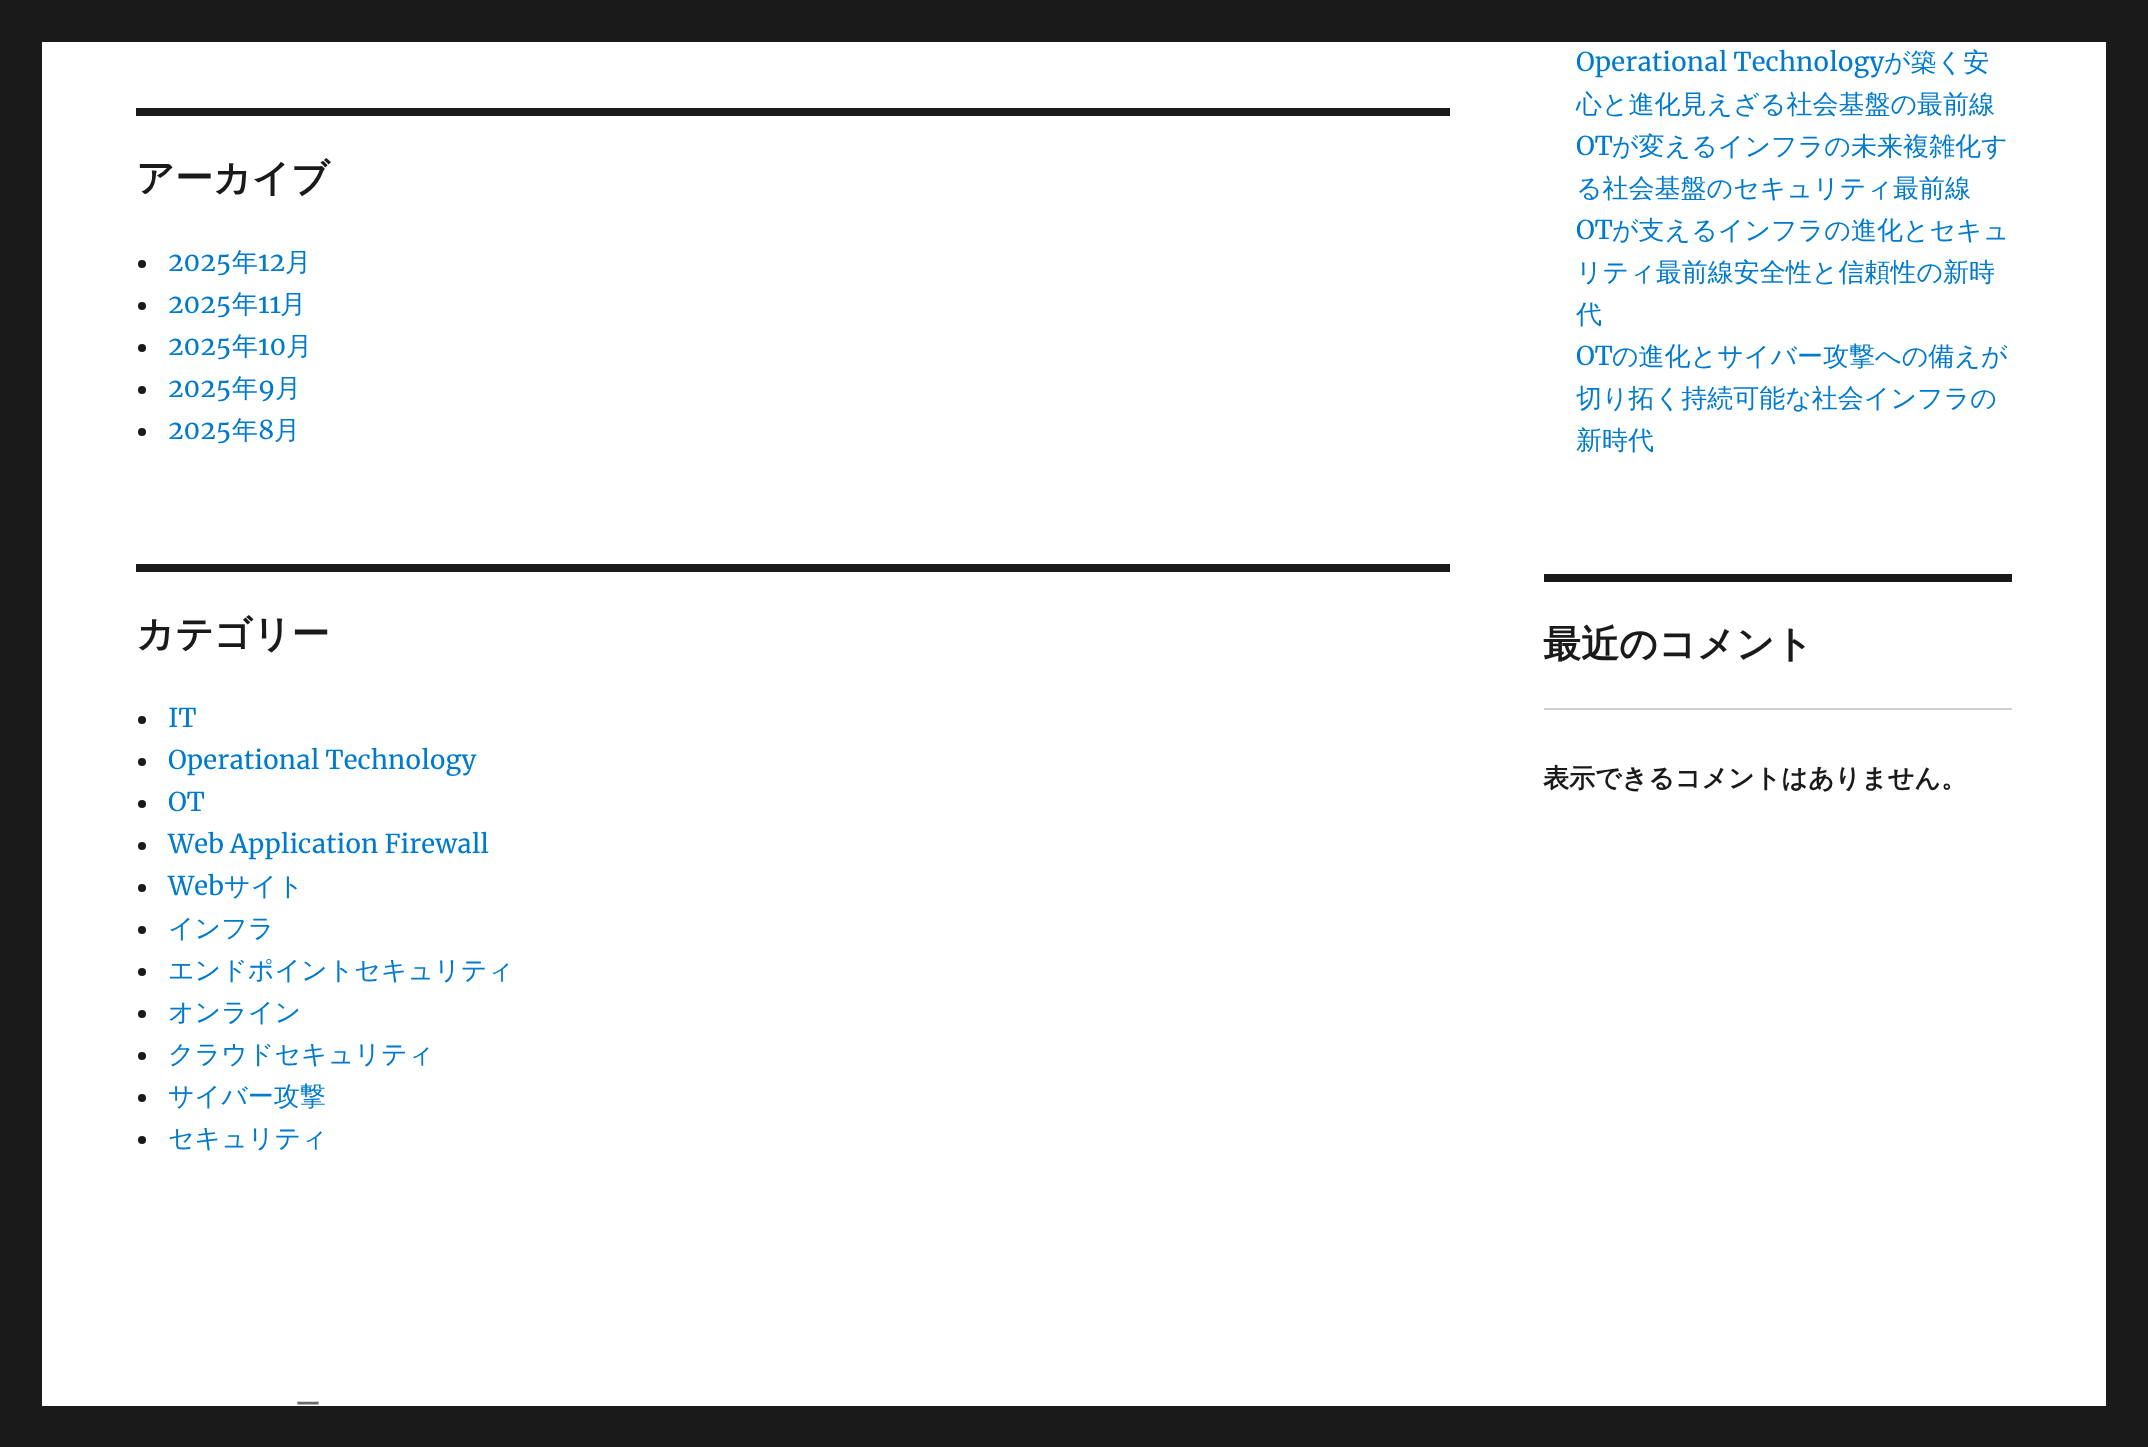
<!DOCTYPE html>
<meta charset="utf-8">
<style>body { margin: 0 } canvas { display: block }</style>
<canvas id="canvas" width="2148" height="1447"></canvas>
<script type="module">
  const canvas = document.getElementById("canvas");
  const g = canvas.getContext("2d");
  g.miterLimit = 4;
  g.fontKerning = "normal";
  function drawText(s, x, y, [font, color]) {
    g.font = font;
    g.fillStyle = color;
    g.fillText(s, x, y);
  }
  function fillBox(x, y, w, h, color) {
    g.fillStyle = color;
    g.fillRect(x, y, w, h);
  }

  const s1 = ["bold 38px WenQuanYi Zen Hei", "#1A1A1A"];
  const s2 = ["26px Merriweather", "#007ACC"];
  const s3 = ["500 26px WenQuanYi Zen Hei", "#007ACC"];
  const s4 = ["bold 26px WenQuanYi Zen Hei", "#1A1A1A"];
  const s5 = ["500 26px WenQuanYi Zen Hei", "#686868"];

  fillBox(0, 0, 2148, 1447, "#1A1A1A");
  fillBox(42, 42, 2064, 1364, "#FFFFFF");
  fillBox(136, 108, 1314, 8, "#1A1A1A");
  drawText("アーカイブ", 136, 191, s1);
  g.beginPath();
  g.arc(142, 264, 4, 0, Math.PI * 2);
  g.fill();
  drawText("2025", 168, 271, s2);
  drawText("年", 232, 271, s3);
  drawText("12", 258, 271, s2);
  drawText("月", 285, 271, s3);
  g.fillStyle = "#1A1A1A";
  g.beginPath();
  g.arc(142, 306, 4, 0, Math.PI * 2);
  g.fill();
  drawText("2025", 168, 313, s2);
  drawText("年", 232, 313, s3);
  drawText("11", 258, 313, s2);
  drawText("月", 280, 313, s3);
  g.fillStyle = "#1A1A1A";
  g.beginPath();
  g.arc(142, 348, 4, 0, Math.PI * 2);
  g.fill();
  drawText("2025", 168, 355, s2);
  drawText("年", 232, 355, s3);
  drawText("10", 258, 355, s2);
  drawText("月", 286, 355, s3);
  g.fillStyle = "#1A1A1A";
  g.beginPath();
  g.arc(142, 390, 4, 0, Math.PI * 2);
  g.fill();
  drawText("2025", 168, 397, s2);
  drawText("年", 232, 397, s3);
  drawText("9", 258, 397, s2);
  drawText("月", 275, 397, s3);
  g.fillStyle = "#1A1A1A";
  g.beginPath();
  g.arc(142, 432, 4, 0, Math.PI * 2);
  g.fill();
  drawText("2025", 168, 439, s2);
  drawText("年", 232, 439, s3);
  drawText("8", 258, 439, s2);
  drawText("月", 274, 439, s3);
  fillBox(136, 564, 1314, 8, "#1A1A1A");
  drawText("カテゴリー", 136, 647, s1);
  g.beginPath();
  g.arc(142, 720, 4, 0, Math.PI * 2);
  g.fill();
  drawText("IT", 168, 727, s2);
  g.fillStyle = "#1A1A1A";
  g.beginPath();
  g.arc(142, 762, 4, 0, Math.PI * 2);
  g.fill();
  drawText("Operational Technology", 168, 769, s2);
  g.fillStyle = "#1A1A1A";
  g.beginPath();
  g.arc(142, 804, 4, 0, Math.PI * 2);
  g.fill();
  drawText("OT", 168, 811, s2);
  g.fillStyle = "#1A1A1A";
  g.beginPath();
  g.arc(142, 846, 4, 0, Math.PI * 2);
  g.fill();
  drawText("Web Application Firewall", 168, 853, s2);
  g.fillStyle = "#1A1A1A";
  g.beginPath();
  g.arc(142, 888, 4, 0, Math.PI * 2);
  g.fill();
  drawText("Web", 168, 895, s2);
  drawText("サイト", 224, 895, s3);
  g.fillStyle = "#1A1A1A";
  g.beginPath();
  g.arc(142, 930, 4, 0, Math.PI * 2);
  g.fill();
  drawText("インフラ", 168, 937, s3);
  g.fillStyle = "#1A1A1A";
  g.beginPath();
  g.arc(142, 972, 4, 0, Math.PI * 2);
  g.fill();
  drawText("エンドポイントセキュリティ", 168, 979, s3);
  g.fillStyle = "#1A1A1A";
  g.beginPath();
  g.arc(142, 1014, 4, 0, Math.PI * 2);
  g.fill();
  drawText("オンライン", 168, 1021, s3);
  g.fillStyle = "#1A1A1A";
  g.beginPath();
  g.arc(142, 1056, 4, 0, Math.PI * 2);
  g.fill();
  drawText("クラウドセキュリティ", 168, 1063, s3);
  g.fillStyle = "#1A1A1A";
  g.beginPath();
  g.arc(142, 1098, 4, 0, Math.PI * 2);
  g.fill();
  drawText("サイバー攻撃", 168, 1105, s3);
  g.fillStyle = "#1A1A1A";
  g.beginPath();
  g.arc(142, 1140, 4, 0, Math.PI * 2);
  g.fill();
  drawText("セキュリティ", 168, 1147, s3);
  drawText("Operational Technology", 1576, 71, s2);
  drawText("が築く安", 1884, 71, s3);
  drawText("心と進化見えざる社会基盤の最前線", 1576, 113, s3);
  drawText("OT", 1576, 155, s2);
  drawText("が変えるインフラの未来複雑化す", 1612, 155, s3);
  drawText("る社会基盤のセキュリティ最前線", 1576, 197, s3);
  drawText("OT", 1576, 239, s2);
  drawText("が支えるインフラの進化とセキュ", 1612, 239, s3);
  drawText("リティ最前線安全性と信頼性の新時", 1576, 281, s3);
  drawText("代", 1576, 323, s3);
  drawText("OT", 1576, 365, s2);
  drawText("の進化とサイバー攻撃への備えが", 1612, 365, s3);
  drawText("切り拓く持続可能な社会インフラの", 1576, 407, s3);
  drawText("新時代", 1576, 449, s3);
  fillBox(1544, 574, 468, 8, "#1A1A1A");
  drawText("最近のコメント", 1543, 657, s1);
  fillBox(1544, 708, 468, 2, "#D1D1D1");
  drawText("表示できるコメントはありません。", 1543, 787, s4);
  drawText("ー", 295, 1413, s5);
</script>
